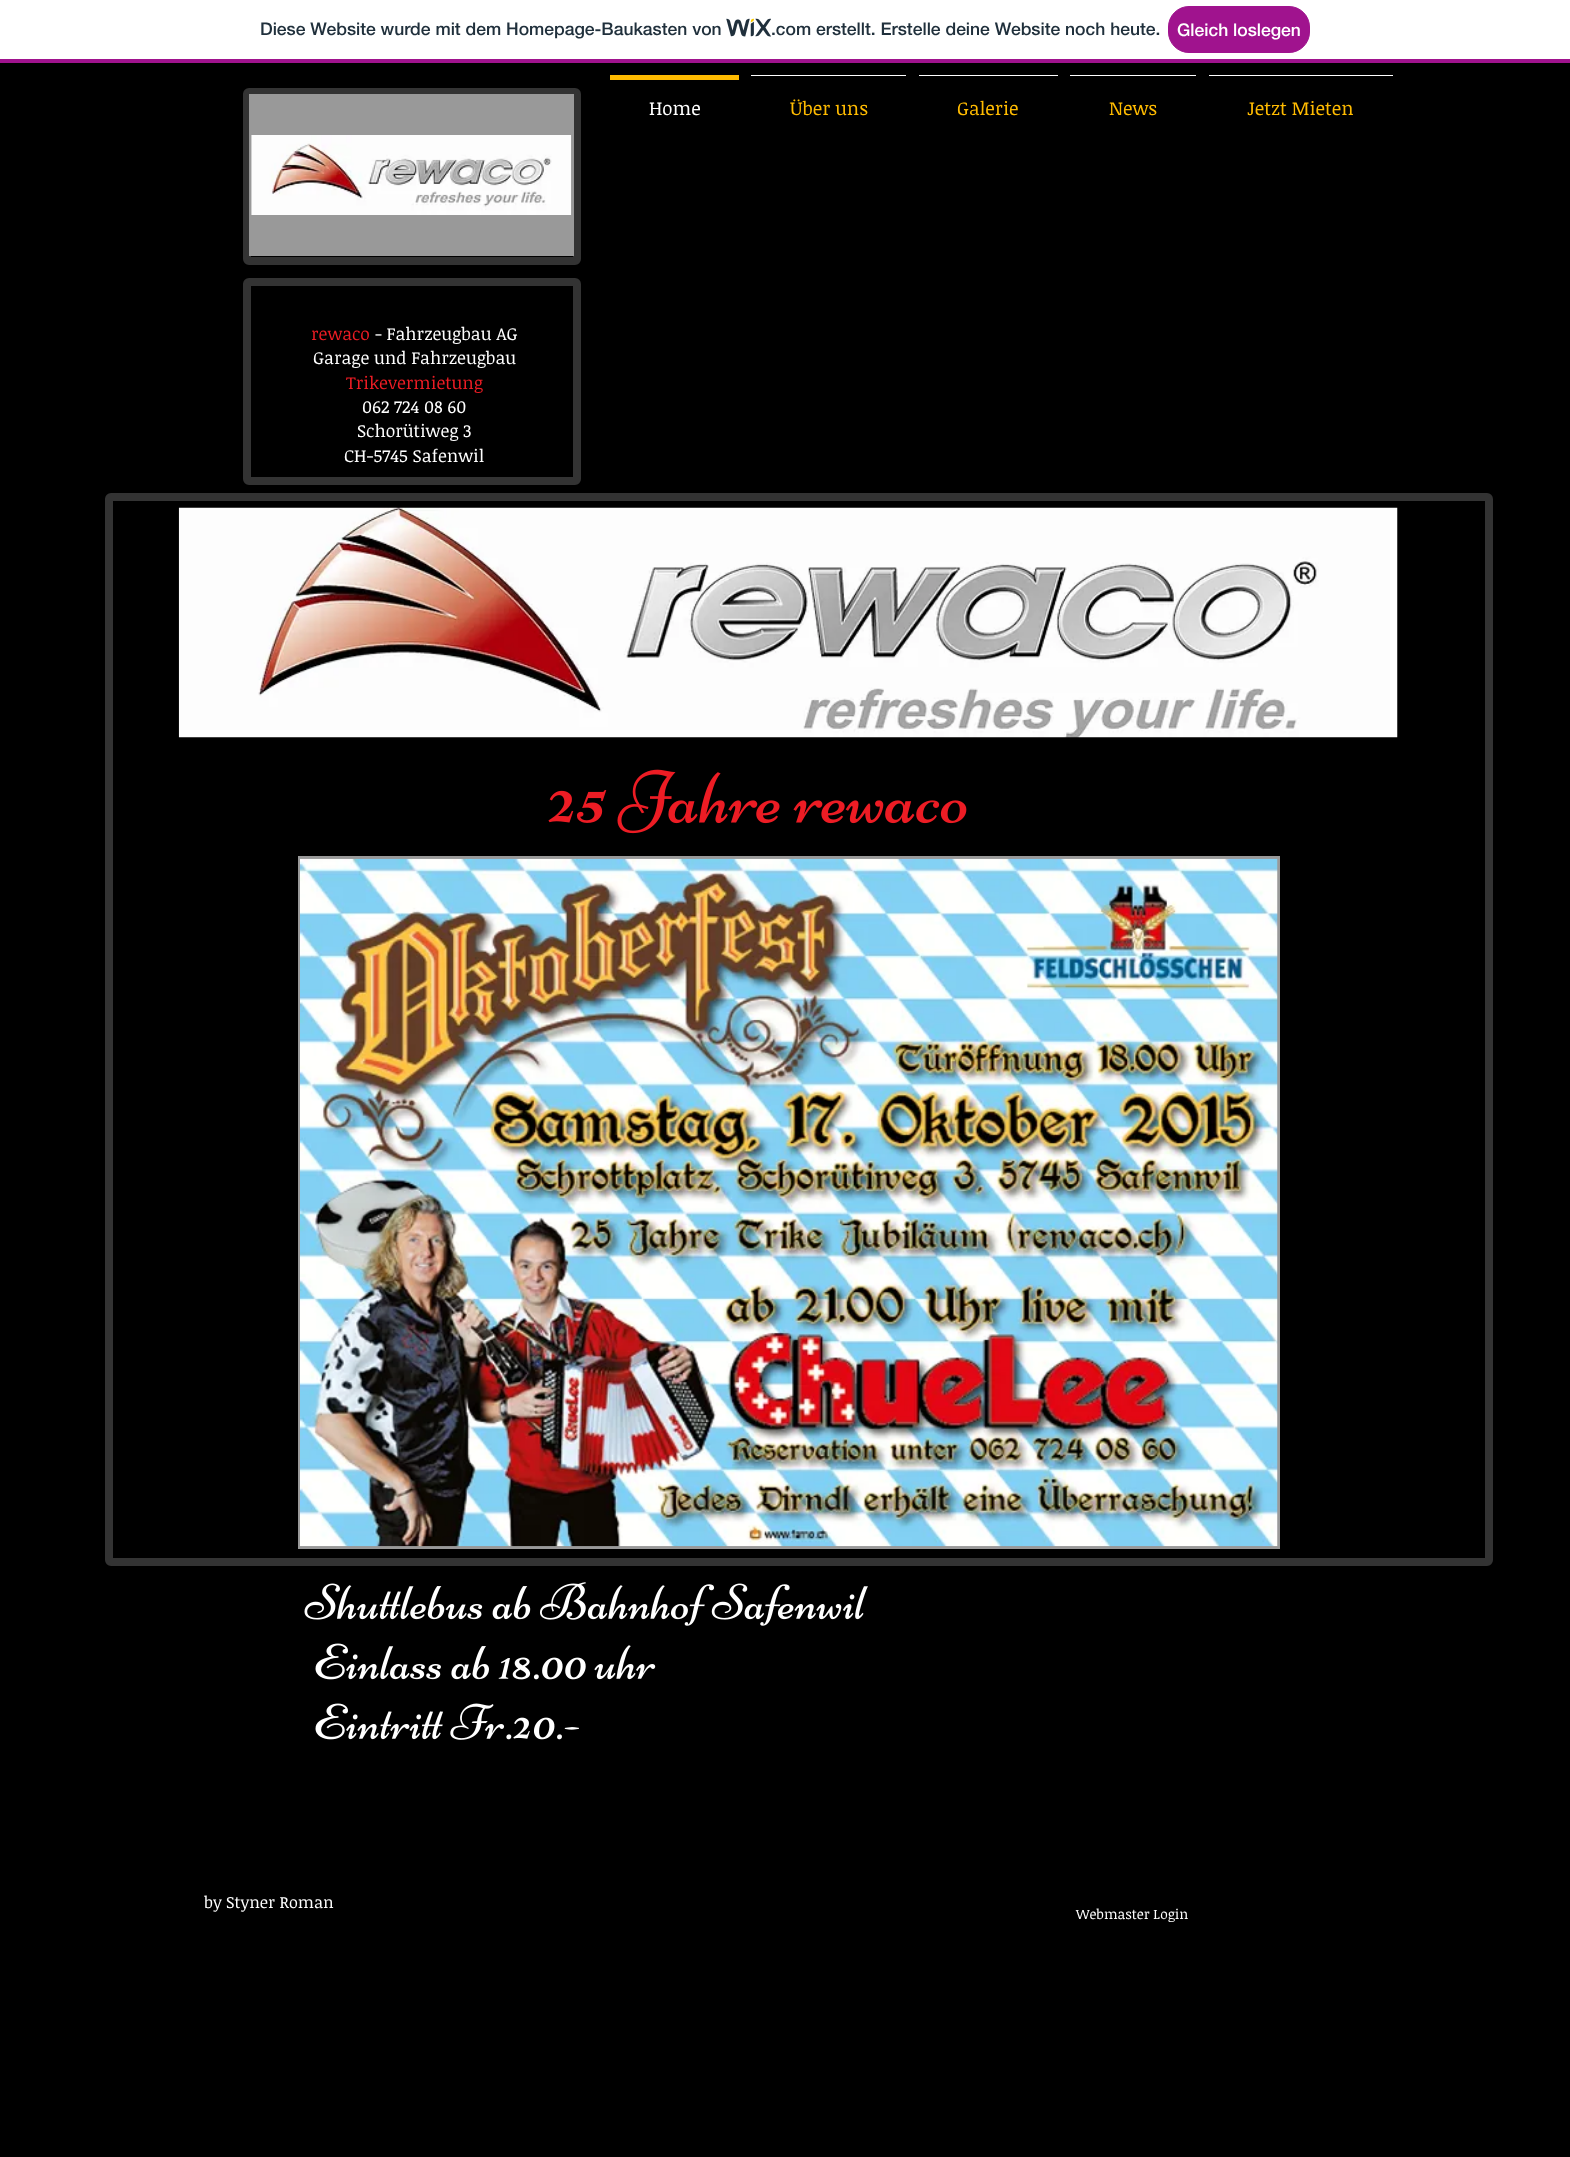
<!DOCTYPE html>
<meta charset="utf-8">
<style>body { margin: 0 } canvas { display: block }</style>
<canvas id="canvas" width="1570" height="2157"></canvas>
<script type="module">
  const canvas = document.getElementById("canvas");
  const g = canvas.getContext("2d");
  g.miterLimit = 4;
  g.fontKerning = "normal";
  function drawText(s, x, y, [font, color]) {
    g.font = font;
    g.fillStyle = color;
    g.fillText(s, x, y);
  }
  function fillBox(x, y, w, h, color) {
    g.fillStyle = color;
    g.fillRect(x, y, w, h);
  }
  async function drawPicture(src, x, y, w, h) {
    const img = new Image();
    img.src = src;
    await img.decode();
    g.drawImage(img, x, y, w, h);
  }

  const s1 = ["500 17.5px 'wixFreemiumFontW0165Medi'", "#20303C"];
  const s2 = ["500 17.5px 'wixFreemiumFontW0165Medi'", "#FFFFFF"];
  const s3 = ["18.75px Noticia Text", "#FFFFFF"];
  const s4 = ["18.75px Noticia Text", "#FFBB00"];
  const s5 = ["17.5px Noticia Text", "#ED1C24"];
  const s6 = ["17.5px Noticia Text", "#FFFFFF"];
  const s7 = ["16.25px Noticia Text", "#FFFFFF"];
  const s8 = ["13.75px Noticia Text", "#FFFFFF"];

  fillBox(0, 0, 1570, 2157, "#FFFFFF");
  fillBox(0, 59, 1570, 4, "#A0138E");
  drawText("Diese Website wurde mit dem Homepage-Baukasten von", 260, 35, s1);
  await drawPicture("pic1.png", 726, 18, 45, 19);
  drawText(".com erstellt. Erstelle deine Website noch heute.", 771, 35, s1);
  g.fillStyle = "#A0138E";
  g.beginPath();
  g.roundRect(1168.5, 6.5, 141, 46, 20.5);
  g.fill();
  g.strokeStyle = "#A0138E";
  g.stroke();
  drawText("Gleich loslegen", 1177, 36, s2);
  fillBox(0, 63, 1570, 2094, "#000000");
  g.beginPath();
  g.roundRect(247, 92, 330, 169, 2);
  g.strokeStyle = "#333333";
  g.lineWidth = 8;
  g.stroke();
  fillBox(249, 94, 325, 162, "#999999");
  await drawPicture("pic2.png", 251, 135, 321, 80);
  fillBox(610, 75, 129, 5, "#FFBB00");
  drawText("Home", 649, 115, s3);
  fillBox(751, 75, 155, 1, "#FFFFFF");
  drawText("Über uns", 790, 115, s4);
  fillBox(919, 75, 139, 1, "#FFFFFF");
  drawText("Galerie", 957, 115, s4);
  fillBox(1070, 75, 126, 1, "#FFFFFF");
  drawText("News", 1109, 115, s4);
  fillBox(1209, 75, 184, 1, "#FFFFFF");
  drawText("Jetzt Mieten", 1247, 115, s4);
  g.beginPath();
  g.roundRect(247, 282, 330, 199, 2);
  g.stroke();
  drawText("rewaco", 311, 340, s5);
  drawText("- Fahrzeugbau AG", 375, 340, s6);
  drawText("Garage und Fahrzeugbau", 313, 364, s6);
  drawText("Trikevermietung", 346, 389, s5);
  drawText("062 724 08 60", 362, 413, s6);
  drawText("Schorütiweg 3", 357, 437, s6);
  drawText("CH-5745 Safenwil", 344, 462, s6);
  g.beginPath();
  g.roundRect(109, 497, 1380, 1065, 2);
  g.stroke();
  await drawPicture("pic3.png", 548, 769, 419, 65);
  fillBox(298, 856, 982, 693, "#999999");
  await drawPicture("pic4.png", 300, 858, 978, 689);
  await drawPicture("pic5.png", 178, 507, 1220, 231);
  await drawPicture("pic6.png", 304, 1582, 564, 44);
  await drawPicture("pic7.png", 315, 1643, 341, 37);
  await drawPicture("pic8.png", 315, 1703, 264, 37);
  drawText("by Styner Roman", 204, 1908, s7);
  drawText("Webmaster Login", 1076, 1919, s8);
</script>
